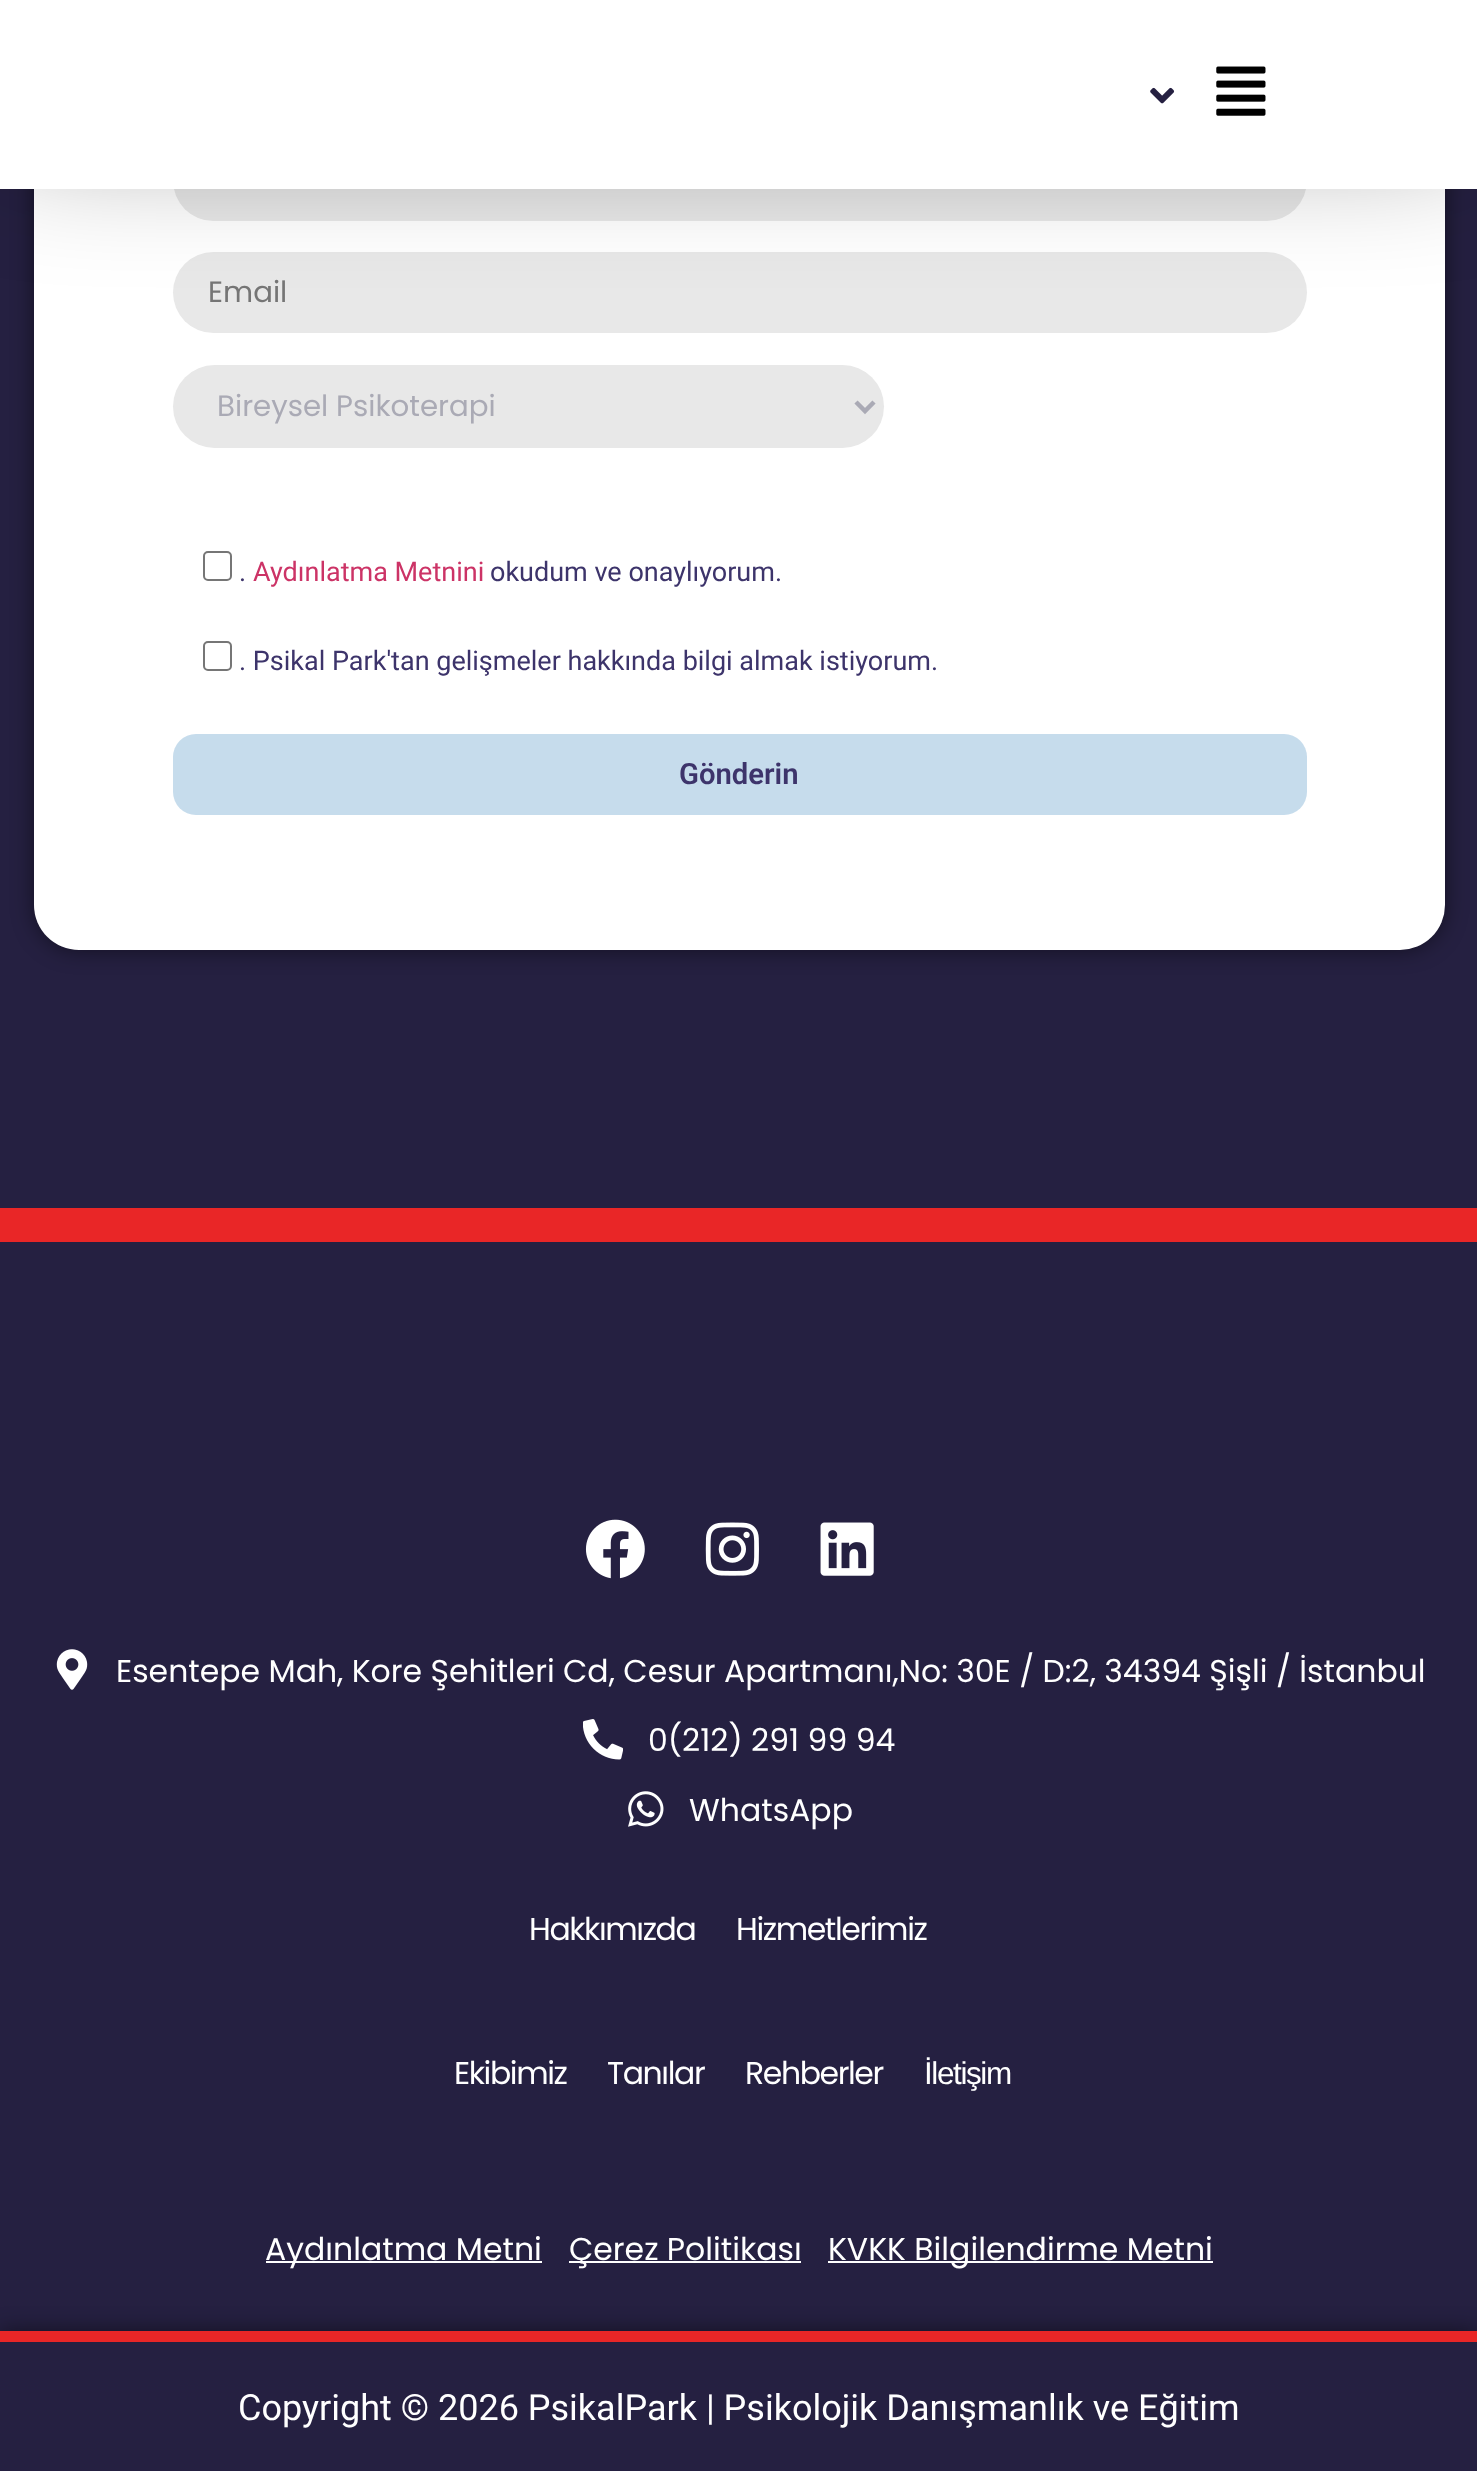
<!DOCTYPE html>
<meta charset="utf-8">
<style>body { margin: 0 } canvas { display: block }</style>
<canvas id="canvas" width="1477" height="2471"></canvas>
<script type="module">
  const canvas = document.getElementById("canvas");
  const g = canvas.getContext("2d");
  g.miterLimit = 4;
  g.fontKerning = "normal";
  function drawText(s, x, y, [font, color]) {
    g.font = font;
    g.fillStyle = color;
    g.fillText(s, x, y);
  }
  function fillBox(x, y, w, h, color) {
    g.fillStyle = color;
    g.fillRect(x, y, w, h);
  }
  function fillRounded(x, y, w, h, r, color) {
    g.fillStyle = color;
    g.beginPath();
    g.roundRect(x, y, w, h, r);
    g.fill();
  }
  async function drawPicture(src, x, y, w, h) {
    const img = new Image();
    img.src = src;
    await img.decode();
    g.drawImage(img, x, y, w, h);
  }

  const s1 = ["29.25px Poppins", "#757575"];
  const s2 = ["29.25px Poppins", "#AAAAB5"];
  const s3 = ["27px Roboto", "#3D346B"];
  const s4 = ["27px Roboto", "#CC3366"];
  const s5 = ["600 29.25px Roboto", "#3D346B"];
  const s6 = ["31.5px Poppins", "#FFFFFF"];
  const s7 = ["31.5px Liberation Sans", "#FFFFFF"];
  const s8 = ["36px Roboto", "#FFFFFF"];

  fillBox(0, 0, 1477, 2471, "#252041");
  g.fillStyle = "rgba(0, 0, 0, 0.5)";
  g.filter = "blur(11px)";
  g.beginPath();
  g.roundRect(34, -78, 1411, 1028, 45);
  g.fill();
  g.filter = "none";
  fillRounded(34, -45, 1411, 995, 45, "#FFFFFF");
  fillRounded(173, 140, 1134, 81, 40.5, "#E8E8E8");
  fillRounded(173, 252, 1134, 81, 40.5, "#E8E8E8");
  g.fillStyle = "rgba(0, 0, 0, 0.5)";
  g.filter = "blur(68.5px)";
  g.beginPath();
  g.rect(0, -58, 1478, 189);
  g.fill();
  g.filter = "none";
  fillBox(0, 0, 1477, 189, "#FFFFFF");
  await drawPicture("pic1.png", 1150, 87, 25, 17);
  await drawPicture("pic2.png", 1216, 66, 50, 50);
  fillBox(0, 1208, 1477, 34, "#E92627");
  drawText("Email", 208, 302, s1);
  fillRounded(173, 365, 711, 83, 41.5, "#E8E8E8");
  g.beginPath();
  g.moveTo(856, 402);
  g.lineTo(865, 411);
  g.lineTo(874, 402);
  g.strokeStyle = "#AAAAB5";
  g.lineWidth = 4.5;
  g.stroke();
  drawText("Bireysel Psikoterapi", 217, 416, s2);
  g.beginPath();
  g.roundRect(204, 552, 27, 28, 4);
  g.strokeStyle = "#767676";
  g.lineWidth = 2;
  g.stroke();
  drawText(".", 239, 581, s3);
  drawText("Aydınlatma Metnini", 253, 581, s4);
  drawText("okudum ve onaylıyorum.", 490, 581, s3);
  g.beginPath();
  g.roundRect(204, 642, 27, 28, 4);
  g.stroke();
  drawText(". Psikal Park'tan gelişmeler hakkında bilgi almak istiyorum.", 239, 670, s3);
  fillRounded(173, 734, 1134, 81, 23, "#C6DCEC");
  drawText("Gönderin", 679, 784, s5);
  await drawPicture("pic3.png", 585, 1519, 60, 60);
  await drawPicture("pic4.png", 705, 1522, 54, 54);
  await drawPicture("pic5.png", 820, 1522, 54, 54);
  await drawPicture("pic6.png", 56, 1649, 32, 41);
  drawText("Esentepe Mah, Kore Şehitleri Cd, Cesur Apartmanı,No: 30E / D:2, 34394 Şişli / İstanbul", 116, 1682, s6);
  await drawPicture("pic7.png", 583, 1719, 40, 41);
  drawText("0(212) 291 99 94", 648, 1751, s6);
  await drawPicture("pic8.png", 628, 1791, 36, 36);
  drawText("WhatsApp", 689, 1821, s6);
  g.letterSpacing = "-1.4px";
  drawText("Hakkımızda", 529, 1940, s6);
  drawText("Hizmetlerimiz", 736, 1940, s6);
  drawText("Ekibimiz", 454, 2084, s6);
  drawText("Tanılar", 607, 2084, s6);
  drawText("Rehberler", 745, 2084, s6);
  drawText("İletişim", 924, 2084, s7);
  fillBox(266, 2261, 276, 2, "#FFFFFF");
  g.letterSpacing = "0px";
  drawText("Aydınlatma Metni", 265, 2260, s6);
  fillBox(569, 2261, 232, 2, "#FFFFFF");
  drawText("Çerez Politikası", 569, 2260, s6);
  fillBox(828, 2261, 385, 2, "#FFFFFF");
  drawText("KVKK Bilgilendirme Metni", 828, 2260, s6);
  g.fillStyle = "rgba(0, 0, 0, 0.5)";
  g.filter = "blur(11px)";
  g.beginPath();
  g.rect(0, 2331, 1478, 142);
  g.fill();
  g.filter = "none";
  fillBox(0, 2342, 1477, 129, "#252041");
  fillBox(0, 2331, 1477, 11, "#E92627");
  drawText("Copyright © 2026 PsikalPark | Psikolojik Danışmanlık ve Eğitim", 238, 2420, s8);
</script>
